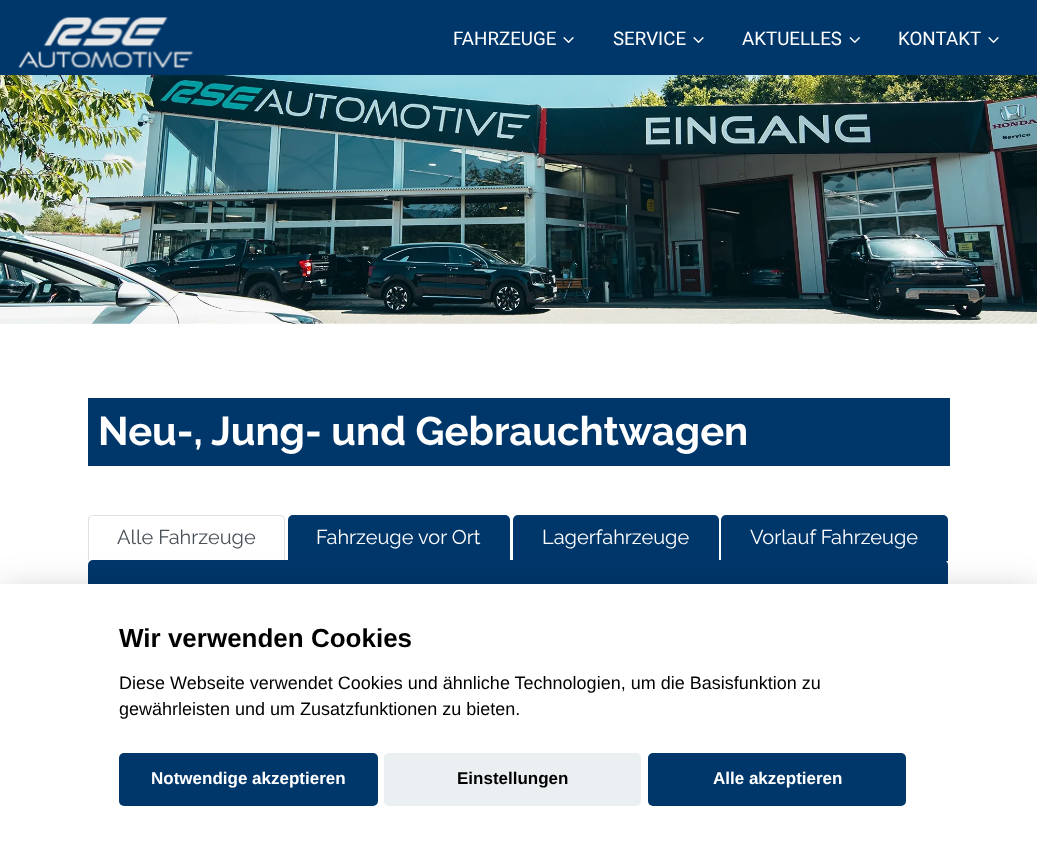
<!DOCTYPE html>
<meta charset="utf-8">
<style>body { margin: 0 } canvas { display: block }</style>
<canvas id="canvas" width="1037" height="846"></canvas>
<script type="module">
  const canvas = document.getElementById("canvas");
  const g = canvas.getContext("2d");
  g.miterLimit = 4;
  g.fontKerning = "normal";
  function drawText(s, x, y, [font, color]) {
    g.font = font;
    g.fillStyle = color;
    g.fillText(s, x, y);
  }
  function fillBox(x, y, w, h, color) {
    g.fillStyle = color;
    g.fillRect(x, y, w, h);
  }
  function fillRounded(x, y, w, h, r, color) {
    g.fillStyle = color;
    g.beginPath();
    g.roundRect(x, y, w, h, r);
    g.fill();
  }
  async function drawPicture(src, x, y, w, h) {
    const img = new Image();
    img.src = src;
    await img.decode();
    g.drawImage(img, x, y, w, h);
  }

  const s1 = ["18.75px Roboto", "#FFFFFF"];
  const s2 = ["bold 40px Raleway", "#FFFFFF"];
  const s3 = ["20px Raleway", "#495057"];
  const s4 = ["20px Raleway", "#FFFFFF"];
  const s5 = ["bold 26px Liberation Sans", "#000000"];
  const s6 = ["18px Liberation Sans", "#000000"];
  const s7 = ["bold 17px Liberation Sans", "#FFFFFF"];
  const s8 = ["bold 17px Liberation Sans", "#000000"];

  fillBox(0, 0, 1037, 846, "#FFFFFF");
  fillBox(0, 0, 1037, 75, "#00376B");
  await drawPicture("pic1.png", 18, 17, 176, 51);
  drawText("FAHRZEUGE", 453, 45, s1);
  await drawPicture("pic2.png", 563, 37, 11, 6);
  drawText("SERVICE", 613, 45, s1);
  await drawPicture("pic2.png", 693, 37, 11, 6);
  drawText("AKTUELLES", 742, 45, s1);
  await drawPicture("pic3.png", 849, 37, 11, 6);
  drawText("KONTAKT", 898, 45, s1);
  await drawPicture("pic2.png", 988, 37, 11, 6);
  await drawPicture("pic4.png", 0, 75, 1037, 249);
  fillBox(88, 398, 862, 68, "#00376B");
  drawText("Neu-, Jung- und Gebrauchtwagen", 98, 445, s2);
  g.fillStyle = "#DEE2E6";
  g.beginPath();
  g.moveTo(92, 515);
  g.bezierCurveTo(91, 515, 90, 516, 89, 517);
  g.lineTo(90, 517);
  g.lineTo(91, 516);
  g.lineTo(280, 516);
  g.lineTo(283, 517);
  g.lineTo(284, 516);
  g.bezierCurveTo(283, 516, 282, 515, 280, 515);
  g.closePath();
  g.fill();
  g.beginPath();
  g.moveTo(285, 561);
  g.lineTo(285, 520);
  g.bezierCurveTo(285, 518, 284, 517, 284, 516);
  g.lineTo(283, 517);
  g.bezierCurveTo(284, 518, 284, 519, 284, 520);
  g.lineTo(284, 560);
  g.closePath();
  g.fill();
  g.beginPath();
  g.moveTo(89, 517);
  g.bezierCurveTo(88, 517, 88, 519, 88, 520);
  g.lineTo(88, 561);
  g.lineTo(89, 560);
  g.lineTo(89, 520);
  g.lineTo(90, 517);
  g.closePath();
  g.fill();
  drawText("Alle Fahrzeuge", 117, 544, s3);
  g.fillStyle = "#00376B";
  g.beginPath();
  g.roundRect(288, 515, 222, 46, [5, 5, 0, 0]);
  g.fill();
  drawText("Fahrzeuge vor Ort", 316, 544, s4);
  g.fillStyle = "#00376B";
  g.beginPath();
  g.roundRect(513, 515, 206, 46, [5, 5, 0, 0]);
  g.fill();
  drawText("Lagerfahrzeuge", 542, 544, s4);
  g.fillStyle = "#00376B";
  g.beginPath();
  g.roundRect(721, 515, 227, 46, [5, 5, 0, 0]);
  g.fill();
  drawText("Vorlauf Fahrzeuge", 750, 544, s4);
  g.fillStyle = "#00376B";
  g.beginPath();
  g.roundRect(88, 560, 860, 46, [5, 5, 0, 0]);
  g.fill();
  g.fillStyle = "rgba(2, 2, 3, 0.28)";
  g.filter = "blur(19px)";
  g.beginPath();
  g.rect(0, 596, 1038, 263);
  g.fill();
  g.filter = "none";
  fillBox(0, 584, 1037, 262, "#FFFFFF");
  drawText("Wir verwenden Cookies", 119, 647, s5);
  drawText("Diese Webseite verwendet Cookies und ähnliche Technologien, um die Basisfunktion zu", 119, 689, s6);
  drawText("gewährleisten und um Zusatzfunktionen zu bieten.", 119, 715, s6);
  fillRounded(119, 753, 259, 53, 5, "#00376B");
  drawText("Notwendige akzeptieren", 151, 784, s7);
  fillRounded(384, 753, 257, 53, 5, "#EAEFF2");
  drawText("Einstellungen", 457, 784, s8);
  fillRounded(648, 753, 258, 53, 5, "#00376B");
  drawText("Alle akzeptieren", 713, 784, s7);
</script>
